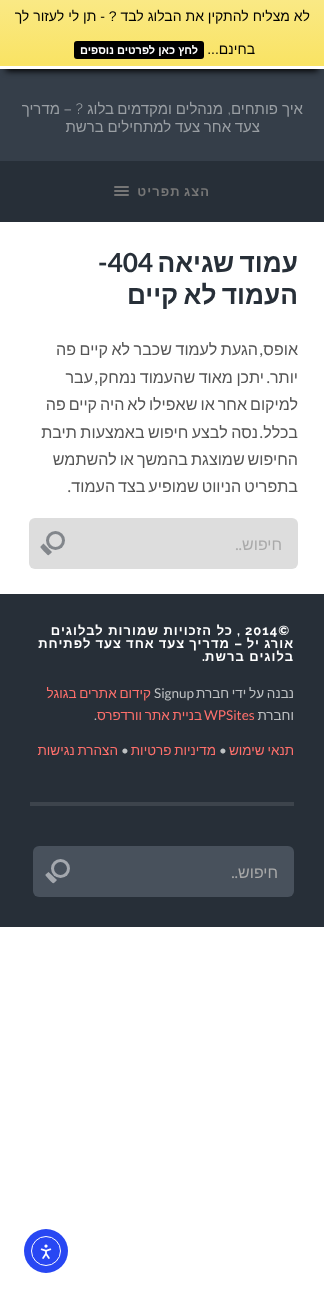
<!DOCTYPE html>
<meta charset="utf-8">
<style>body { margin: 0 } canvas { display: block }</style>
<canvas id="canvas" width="324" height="1297"></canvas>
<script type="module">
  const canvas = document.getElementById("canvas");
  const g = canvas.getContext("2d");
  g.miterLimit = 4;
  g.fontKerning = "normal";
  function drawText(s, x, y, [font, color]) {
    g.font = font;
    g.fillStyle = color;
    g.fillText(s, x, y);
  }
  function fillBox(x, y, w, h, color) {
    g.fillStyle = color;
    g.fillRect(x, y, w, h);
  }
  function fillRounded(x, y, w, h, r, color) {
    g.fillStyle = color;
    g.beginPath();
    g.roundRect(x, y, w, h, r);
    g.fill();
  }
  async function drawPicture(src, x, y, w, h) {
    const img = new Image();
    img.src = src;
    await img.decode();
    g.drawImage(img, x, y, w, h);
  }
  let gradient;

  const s1 = ["14px Liberation Sans", "#000000"];
  const s2 = ["bold 11px Liberation Sans", "#FFFFFF"];
  const s3 = ["15px Liberation Sans", "#9A9FA4"];
  const s4 = ["15px Raleway", "#9A9FA4"];
  const s5 = ["bold 13px Liberation Sans", "#767676"];
  const s6 = ["bold 26.25px Liberation Sans", "#272F38"];
  const s7 = ["bold 26.25px Lato", "#272F38"];
  const s8 = ["16.1px Liberation Sans", "#555555"];
  const s9 = ["16.1px Lato", "#555555"];
  const s10 = ["16px Liberation Sans", "#A9A9A9"];
  const s11 = ["16px Lato", "#A9A9A9"];
  const s12 = ["bold 13px Raleway", "#FFFFFF"];
  const s13 = ["bold 13px Liberation Sans", "#FFFFFF"];
  const s14 = ["13.5px Liberation Sans", "#BEC1C3"];
  const s15 = ["13.5px Lato", "#BEC1C3"];
  const s16 = ["13.5px Liberation Sans", "#FF706C"];
  const s17 = ["13.5px Lato", "#FF706C"];

  fillBox(0, 0, 324, 1297, "#FFFFFF");
  fillBox(0, 69, 324, 92, "#353E49");
  g.fillStyle = "#000000";
  g.filter = "blur(3px)";
  g.beginPath();
  g.rect(6, 14, 312, 57);
  g.fill();
  g.filter = "none";
  gradient = g.createLinearGradient(162, 0, 162, 66);
  gradient.addColorStop(0, "#FAE985");
  gradient.addColorStop(1, "#F9E363");
  g.fillStyle = gradient;
  g.fillRect(0, 0, 324, 66);
  fillBox(0, 66, 324, 3, "#FFFFFF");
  g.direction = "rtl";
  drawText("לא מצליח להתקין את הבלוג לבד ? - תן לי לעזור לך", 310, 21, s1);
  drawText("בחינם...", 255, 54, s1);
  fillRounded(74, 41, 130, 18, 3, "#000000");
  drawText("לחץ כאן לפרטים נוספים", 198, 54, s2);
  drawText("איך", 303, 114, s3);
  drawText("פותחים", 278, 114, s3);
  drawText(",", 231, 114, s4);
  drawText("מנהלים", 223, 114, s3);
  drawText("ומקדמים", 172, 114, s3);
  drawText("בלוג", 114, 114, s3);
  drawText("? –", 83, 114, s4);
  drawText("מדריך", 60, 114, s3);
  g.wordSpacing = "-0.5px";
  drawText("צעד אחר צעד למתחילים ברשת", 260, 132, s3);
  fillBox(0, 161, 324, 61, "#272F38");
  g.letterSpacing = "1px";
  g.wordSpacing = "-1px";
  drawText("הצג תפריט", 210, 196, s5);
  fillRounded(114, 186, 15, 2, 1, "#767676");
  fillRounded(114, 190, 15, 2, 1, "#767676");
  fillRounded(114, 194, 15, 2, 1, "#767676");
  g.letterSpacing = "0px";
  g.wordSpacing = "-2px";
  drawText("עמוד שגיאה", 298, 272, s6);
  g.wordSpacing = "0px";
  g.direction = "ltr";
  drawText("-404", 98, 272, s7);
  g.wordSpacing = "-2px";
  g.direction = "rtl";
  drawText("העמוד לא קיים", 298, 304, s6);
  g.wordSpacing = "0px";
  drawText("אופס", 298, 355, s8);
  drawText(",", 263, 355, s9);
  g.wordSpacing = "-1px";
  drawText("הגעת לעמוד שכבר לא קיים פה", 258, 355, s8);
  g.wordSpacing = "0px";
  drawText("יותר", 298, 383, s8);
  g.wordSpacing = "-1px";
  drawText("יתכן מאוד שהעמוד נמחק", 264, 383, s8);
  g.wordSpacing = "0px";
  drawText("עבר", 93, 383, s8);
  drawText(".", 270, 383, s9);
  drawText(",", 98, 383, s9);
  g.wordSpacing = "-1.5px";
  drawText("למיקום אחר או שאפילו לא היה קיים פה", 298, 410, s8);
  g.wordSpacing = "0px";
  drawText("בכלל", 298, 438, s8);
  drawText(".", 263, 438, s9);
  g.wordSpacing = "-1px";
  drawText("נסה לבצע חיפוש באמצעות תיבת", 258, 438, s8);
  g.wordSpacing = "-1.5px";
  drawText("החיפוש שמוצגת בהמשך או להשתמש", 298, 465, s8);
  drawText("בתפריט הניווט שמופיע בצד העמוד", 298, 492, s8);
  g.wordSpacing = "0px";
  drawText(".", 71, 492, s9);
  fillRounded(29, 518, 269, 51, 6, "#DDDDDD");
  drawText("חיפוש", 282, 550, s10);
  drawText("..", 242, 550, s11);
  g.fillStyle = "#82868B";
  g.beginPath();
  g.arc(55.5, 540.5, 9.5, 0, Math.PI * 2);
  g.fill();
  g.beginPath();
  g.moveTo(43.5, 543.5);
  g.lineTo(52, 552);
  g.bezierCurveTo(47.5, 556.5, 49, 556, 44, 551.5);
  g.lineTo(40.5, 547.5);
  g.lineTo(40.5, 546.5);
  g.closePath();
  g.fill();
  g.fillStyle = "#DDDDDD";
  g.beginPath();
  g.arc(55.5, 540.5, 6.5, 0, Math.PI * 2);
  g.fill();
  fillBox(0, 594, 324, 333, "#272F38");
  g.letterSpacing = "1px";
  g.direction = "ltr";
  drawText("2014©", 245, 635, s12);
  g.direction = "rtl";
  drawText(",", 241, 635, s12);
  drawText("כל הזכויות שמורות לבלוגים", 233, 635, s13);
  g.wordSpacing = "-0.5px";
  drawText("אורג יל", 294, 648, s13);
  g.wordSpacing = "0px";
  drawText("–", 243, 648, s12);
  g.wordSpacing = "-0.5px";
  drawText("מדריך צעד אחד צעד לפתיחת", 230, 648, s13);
  g.wordSpacing = "0px";
  drawText("בלוגים ברשת", 294, 661, s13);
  drawText(".", 206, 661, s12);
  g.letterSpacing = "0px";
  g.wordSpacing = "-1px";
  drawText("נבנה על ידי חברת", 294, 698, s14);
  g.wordSpacing = "0px";
  g.direction = "ltr";
  drawText("Signup", 154, 698, s15);
  g.wordSpacing = "-1px";
  g.direction = "rtl";
  drawText("קידום אתרים בגוגל", 151, 698, s16);
  g.wordSpacing = "0px";
  drawText("וחברת", 294, 720, s14);
  g.direction = "ltr";
  drawText("WPSites", 204, 720, s17);
  g.wordSpacing = "-1px";
  g.direction = "rtl";
  drawText("בניית אתר וורדפרס", 202, 720, s16);
  g.wordSpacing = "0px";
  g.direction = "ltr";
  drawText(".", 94, 720, s15);
  g.wordSpacing = "-1px";
  g.direction = "rtl";
  drawText("תנאי שימוש", 294, 755, s16);
  g.wordSpacing = "0px";
  g.direction = "ltr";
  drawText("•", 219, 755, s15);
  g.wordSpacing = "-1px";
  g.direction = "rtl";
  drawText("מדיניות פרטיות", 216, 755, s16);
  g.wordSpacing = "0px";
  g.direction = "ltr";
  drawText("•", 121, 755, s15);
  g.wordSpacing = "-1px";
  g.direction = "rtl";
  drawText("הצהרת נגישות", 118, 755, s16);
  fillBox(30, 802, 264, 4, "#3D444C");
  fillRounded(33, 846, 261, 51, 6, "#48515C");
  g.wordSpacing = "0px";
  drawText("חיפוש", 278, 878, s10);
  drawText("..", 238, 878, s11);
  g.fillStyle = "#A4A8AE";
  g.beginPath();
  g.arc(60.5, 868.5, 9.5, 0, Math.PI * 2);
  g.fill();
  g.beginPath();
  g.moveTo(48.5, 872);
  g.lineTo(57, 880);
  g.bezierCurveTo(52.5, 884.5, 54, 884.5, 49, 879.5);
  g.lineTo(45.5, 875.5);
  g.lineTo(45.5, 874.5);
  g.closePath();
  g.fill();
  g.fillStyle = "#48515C";
  g.beginPath();
  g.arc(60.5, 868.5, 6.5, 0, Math.PI * 2);
  g.fill();
  g.fillStyle = "#2847F3";
  g.beginPath();
  g.arc(46, 1251, 22, 0, Math.PI * 2);
  g.fill();
  g.beginPath();
  g.arc(46, 1251, 14.5, 0, Math.PI * 2);
  g.strokeStyle = "#FFFFFF";
  g.stroke();
  await drawPicture("pic1.png", 40, 1244, 12, 15);
</script>
